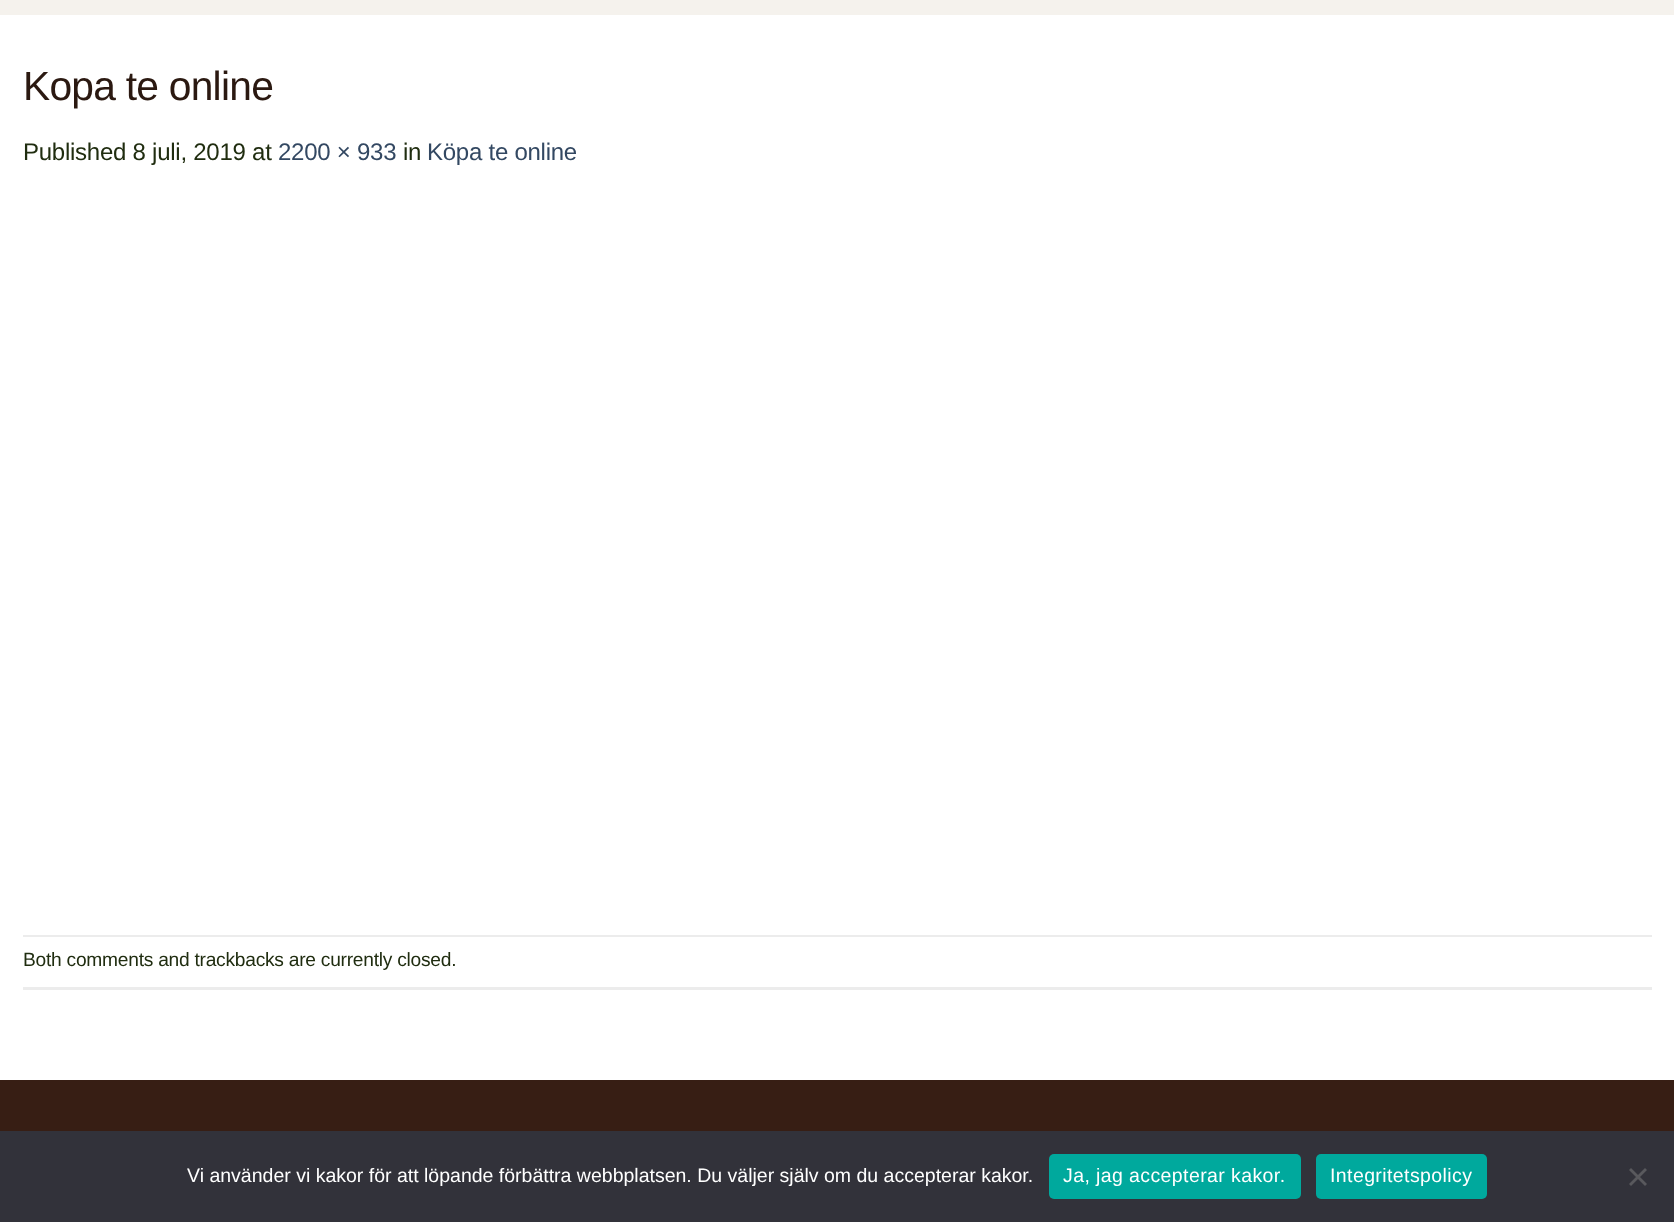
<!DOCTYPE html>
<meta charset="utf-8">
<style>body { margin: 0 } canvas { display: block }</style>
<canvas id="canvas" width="1674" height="1222"></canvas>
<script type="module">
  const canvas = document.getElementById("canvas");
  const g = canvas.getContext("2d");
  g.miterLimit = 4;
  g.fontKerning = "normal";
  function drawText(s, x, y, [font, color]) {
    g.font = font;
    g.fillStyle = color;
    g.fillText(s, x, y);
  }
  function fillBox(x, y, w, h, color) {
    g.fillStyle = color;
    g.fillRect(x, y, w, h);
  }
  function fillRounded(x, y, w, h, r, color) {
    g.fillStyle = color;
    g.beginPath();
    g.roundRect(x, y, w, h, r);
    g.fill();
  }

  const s1 = ["40.75px Liberation Sans", "#2B1911"];
  const s2 = ["24px Liberation Sans", "#202D10"];
  const s3 = ["24px Liberation Sans", "#334862"];
  const s4 = ["19.2px Liberation Sans", "#202D10"];
  const s5 = ["19.5px Liberation Sans", "#FFFFFF"];

  fillBox(0, 0, 1674, 1222, "#FFFFFF");
  fillBox(0, 0, 1674, 15, "#F5F2ED");
  g.letterSpacing = "-0.75px";
  drawText("Kopa te online", 23, 100, s1);
  g.letterSpacing = "-0.25px";
  drawText("Published 8 juli, 2019 at", 23, 160, s2);
  drawText("2200 × 933", 278, 160, s3);
  drawText("in", 403, 160, s2);
  drawText("Köpa te online", 427, 160, s3);
  fillBox(23, 935, 1629, 2, "#ECECEC");
  fillBox(23, 987, 1629, 3, "#ECECEC");
  drawText("Both comments and trackbacks are currently closed.", 23, 966, s4);
  fillBox(0, 1080, 1674, 51, "#371E14");
  fillBox(0, 1131, 1674, 91, "#32323A");
  g.letterSpacing = "0px";
  drawText("Vi använder vi kakor för att löpande förbättra webbplatsen. Du väljer själv om du accepterar kakor.", 187, 1182, s5);
  fillRounded(1049, 1154, 252, 45, 5, "#00A99D");
  g.letterSpacing = "0.4px";
  drawText("Ja, jag accepterar kakor.", 1063, 1182, s5);
  fillRounded(1316, 1154, 171, 45, 5, "#00A99D");
  drawText("Integritetspolicy", 1330, 1182, s5);
  g.fillStyle = "#59595D";
  g.beginPath();
  g.moveTo(1645, 1168);
  g.lineTo(1647, 1170);
  g.lineTo(1631, 1186);
  g.lineTo(1629, 1184);
  g.closePath();
  g.fill();
  g.beginPath();
  g.moveTo(1629, 1170);
  g.lineTo(1631, 1168);
  g.lineTo(1647, 1184);
  g.lineTo(1645, 1186);
  g.closePath();
  g.fill();
</script>
